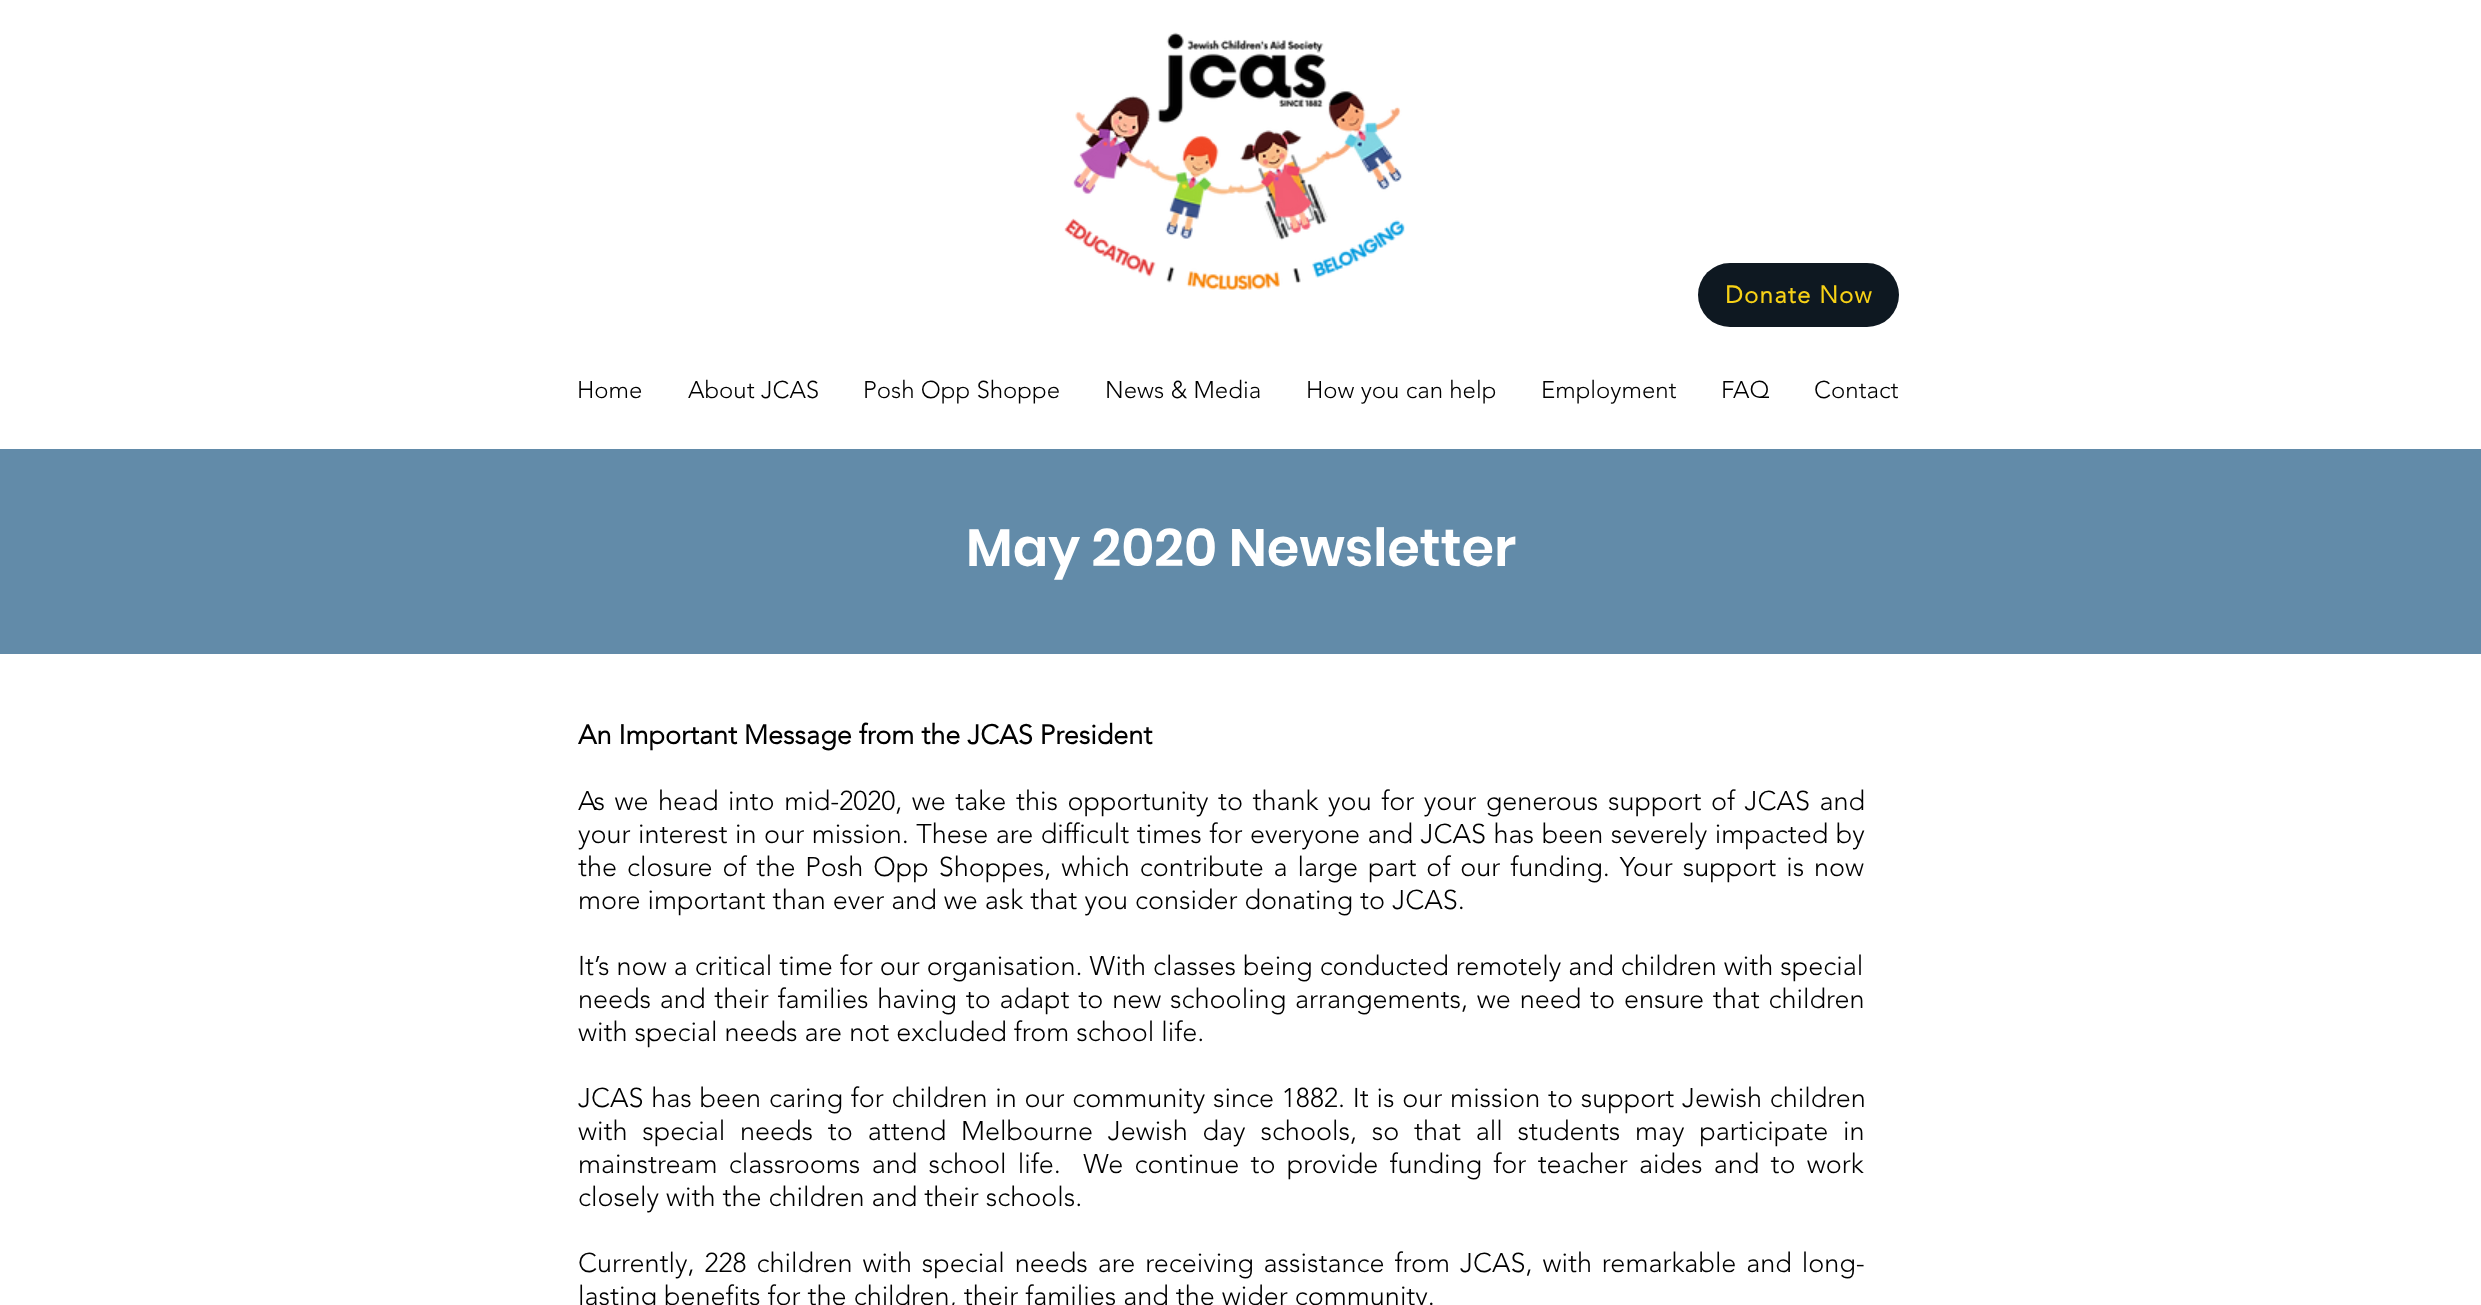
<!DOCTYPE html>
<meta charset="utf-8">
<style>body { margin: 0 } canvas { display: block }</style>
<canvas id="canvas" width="2481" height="1305"></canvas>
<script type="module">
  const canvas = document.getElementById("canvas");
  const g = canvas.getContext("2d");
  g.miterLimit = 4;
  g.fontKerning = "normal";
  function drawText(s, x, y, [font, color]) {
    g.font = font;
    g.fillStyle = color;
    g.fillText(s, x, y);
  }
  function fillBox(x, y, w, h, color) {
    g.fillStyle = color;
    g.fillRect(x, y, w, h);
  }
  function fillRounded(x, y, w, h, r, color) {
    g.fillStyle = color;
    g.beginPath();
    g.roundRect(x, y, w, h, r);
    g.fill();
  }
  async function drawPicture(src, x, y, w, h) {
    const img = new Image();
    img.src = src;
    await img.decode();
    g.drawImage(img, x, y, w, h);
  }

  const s1 = ["bold 24px 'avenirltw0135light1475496'", "#F7D116"];
  const s2 = ["300 24px 'avenirltw0135light1475496'", "#000000"];
  const s3 = ["600 52.5px Poppins", "#FFFFFF"];
  const s4 = ["bold 27px 'avenirltw0135light1475496'", "#000000"];
  const s5 = ["300 27px 'avenirltw0135light1475496'", "#000000"];

  fillBox(0, 0, 2481, 1305, "#FFFFFF");
  await drawPicture("pic1.png", 1064, 32, 341, 258);
  fillRounded(1698, 263, 201, 64, 32, "#0E1821");
  g.letterSpacing = "1.25px";
  drawText("Donate Now", 1725, 303, s1);
  g.letterSpacing = "0px";
  drawText("Home", 577, 398, s2);
  drawText("About JCAS", 688, 398, s2);
  drawText("Posh Opp Shoppe", 863, 398, s2);
  drawText("News & Media", 1105, 398, s2);
  drawText("How you can help", 1306, 398, s2);
  drawText("Employment", 1541, 398, s2);
  drawText("FAQ", 1721, 398, s2);
  drawText("Contact", 1814, 398, s2);
  fillBox(0, 449, 2481, 205, "#628BA9");
  drawText("May 2020 Newsletter", 966, 566, s3);
  drawText("An Important Message from the JCAS President", 578, 744, s4);
  g.wordSpacing = "2.5px";
  drawText("As we head into mid-2020, we take this opportunity to thank you for your generous support of JCAS and", 578, 810, s5);
  g.wordSpacing = "0.5px";
  drawText("your interest in our mission. These are difficult times for everyone and JCAS has been severely impacted by", 578, 843, s5);
  g.wordSpacing = "2.9px";
  drawText("the closure of the Posh Opp Shoppes, which contribute a large part of our funding. Your support is now", 578, 876, s5);
  g.wordSpacing = "0px";
  drawText("more important than ever and we ask that you consider donating to JCAS.", 578, 909, s5);
  drawText("It’s now a critical time for our organisation. With classes being conducted remotely and children with special", 578, 975, s5);
  g.wordSpacing = "1.8px";
  drawText("needs and their families having to adapt to new schooling arrangements, we need to ensure that children", 578, 1008, s5);
  g.wordSpacing = "0px";
  drawText("with special needs are not excluded from school life.", 578, 1041, s5);
  g.wordSpacing = "0.75px";
  drawText("JCAS has been caring for children in our community since 1882. It is our mission to support Jewish children", 578, 1107, s5);
  g.wordSpacing = "7.75px";
  drawText("with special needs to attend Melbourne Jewish day schools, so that all students may participate in", 578, 1140, s5);
  g.wordSpacing = "4.25px";
  drawText("mainstream classrooms and school life.  We continue to provide funding for teacher aides and to work", 578, 1173, s5);
  g.wordSpacing = "0px";
  drawText("closely with the children and their schools.", 578, 1206, s5);
  g.wordSpacing = "2.9px";
  drawText("Currently, 228 children with special needs are receiving assistance from JCAS, with remarkable and long-", 578, 1272, s5);
  g.wordSpacing = "0px";
  drawText("lasting benefits for the children, their families and the wider community.", 578, 1305, s5);
</script>
